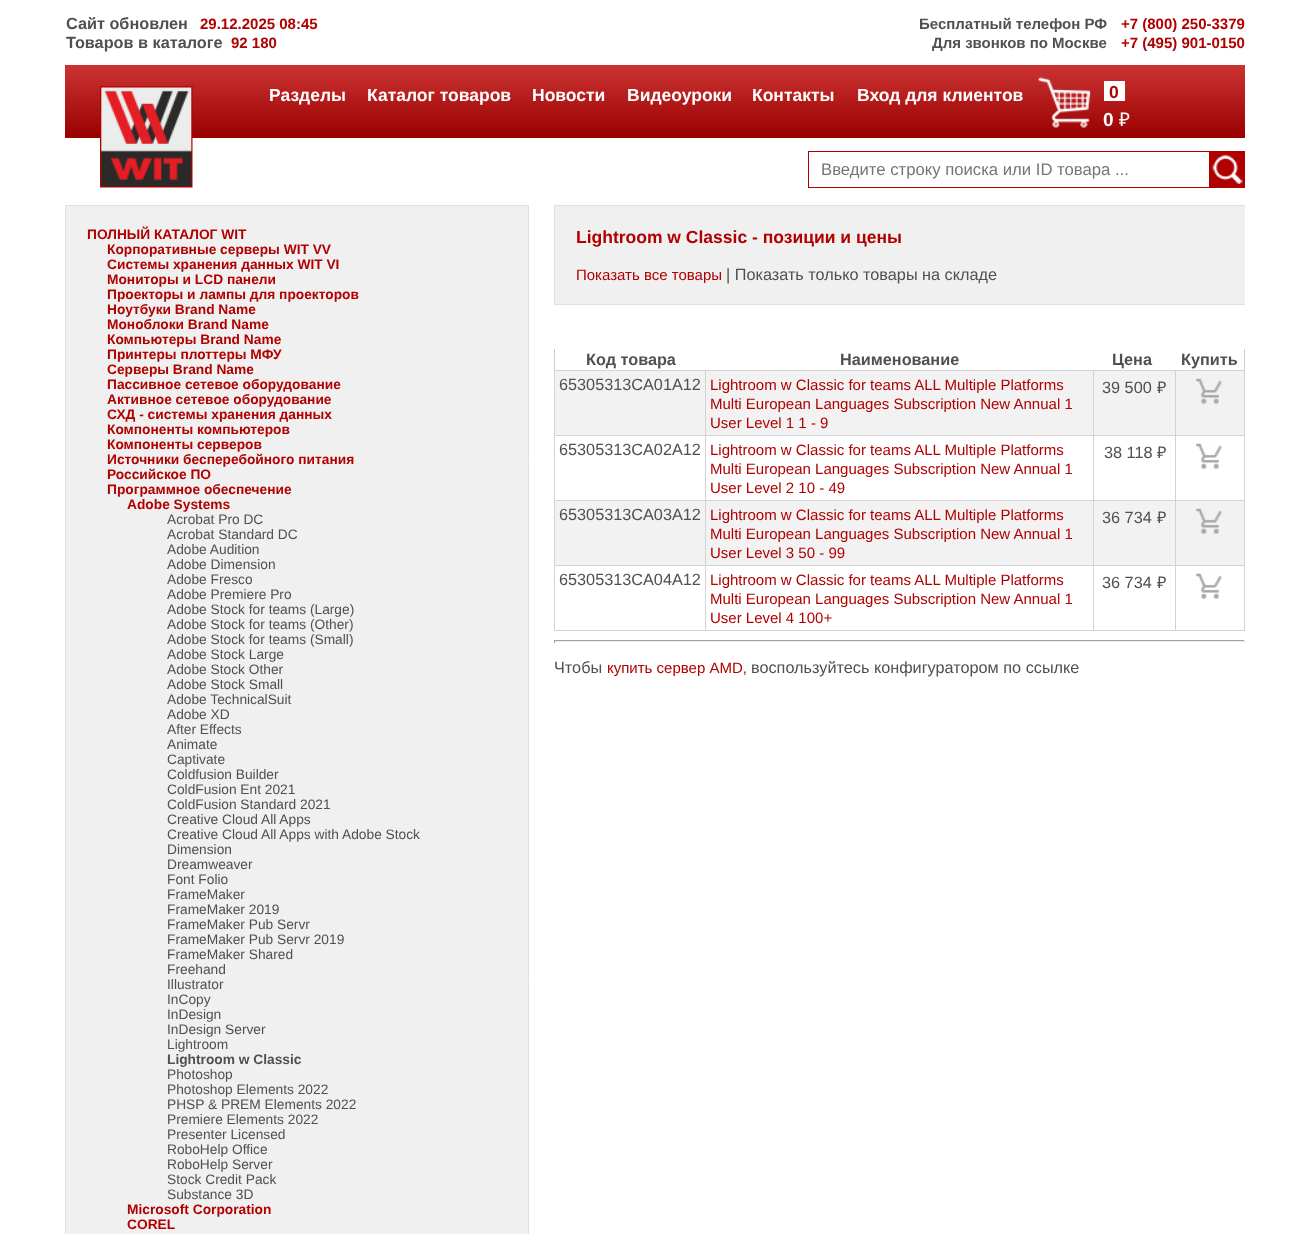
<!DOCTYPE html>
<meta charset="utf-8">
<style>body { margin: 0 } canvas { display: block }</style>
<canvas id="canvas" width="1310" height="1234"></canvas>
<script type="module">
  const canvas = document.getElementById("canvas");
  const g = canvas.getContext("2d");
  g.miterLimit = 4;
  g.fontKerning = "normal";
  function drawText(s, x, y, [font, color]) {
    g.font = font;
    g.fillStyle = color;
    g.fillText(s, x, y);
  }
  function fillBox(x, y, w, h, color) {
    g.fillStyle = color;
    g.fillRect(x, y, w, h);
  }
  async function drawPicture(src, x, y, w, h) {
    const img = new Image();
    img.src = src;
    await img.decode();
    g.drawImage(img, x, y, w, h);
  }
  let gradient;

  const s1 = ["bold 16.25px Liberation Sans", "#505050"];
  const s2 = ["bold 15px Liberation Sans", "#B00000"];
  const s3 = ["bold 15px Liberation Sans", "#505050"];
  const s4 = ["bold 17.5px Liberation Sans", "#FFFFFF"];
  const s5 = ["bold 17.5px Liberation Sans", "#B00000"];
  const s6 = ["bold 19px Liberation Sans", "#FFFFFF"];
  const s7 = ["19px Noto Sans", "#FFFFFF"];
  const s8 = ["16.7px Liberation Sans", "#757575"];
  const s9 = ["bold 13.75px Liberation Sans", "#B00000"];
  const s10 = ["13.75px Liberation Sans", "#505050"];
  const s11 = ["bold 13.75px Liberation Sans", "#505050"];
  const s12 = ["15px Liberation Sans", "#B00000"];
  const s13 = ["16.25px Liberation Sans", "#505050"];
  const s14 = ["16.25px Noto Sans", "#505050"];

  fillBox(0, 0, 1310, 1234, "#FFFFFF");
  drawText("Сайт обновлен", 66, 29, s1);
  drawText("29.12.2025 08:45", 200, 29, s2);
  drawText("Товаров в каталоге", 66, 48, s1);
  drawText("92 180", 231, 48, s2);
  drawText("Бесплатный телефон РФ", 919, 29, s3);
  drawText("+7 (800) 250-3379", 1121, 29, s2);
  drawText("Для звонков по Москве", 932, 48, s3);
  drawText("+7 (495) 901-0150", 1121, 48, s2);
  gradient = g.createLinearGradient(655, 65, 655, 138);
  gradient.addColorStop(0, "#CC3333");
  gradient.addColorStop(1, "#990000");
  g.fillStyle = gradient;
  g.fillRect(65, 65, 1180, 73);
  await drawPicture("pic1.png", 100, 86, 93, 102);
  drawText("Разделы", 269, 101, s4);
  drawText("Каталог товаров", 367, 101, s4);
  drawText("Новости", 532, 101, s4);
  drawText("Видеоуроки", 627, 101, s4);
  drawText("Контакты", 752, 101, s4);
  drawText("Вход для клиентов", 857, 101, s4);
  await drawPicture("pic2.png", 1038, 77, 53, 51);
  fillBox(1104, 81, 21, 20, "#FFFFFF");
  drawText("0", 1109, 98, s5);
  drawText("0", 1103, 126, s6);
  drawText("₽", 1119, 126, s7);
  g.strokeStyle = "#B00000";
  g.strokeRect(808.5, 151.5, 436, 36);
  drawText("Введите строку поиска или ID товара ...", 821, 175, s8);
  fillBox(1209, 152, 35, 35, "#B00000");
  await drawPicture("pic3.png", 1212, 154, 31, 30);
  g.fillStyle = "#F0F0F0";
  g.beginPath();
  g.rect(65.5, 205.5, 463, 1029);
  g.fill();
  g.strokeStyle = "#E0E0E0";
  g.stroke();
  drawText("ПОЛНЫЙ КАТАЛОГ WIT", 87, 239, s9);
  drawText("Корпоративные серверы WIT VV", 107, 254, s9);
  drawText("Системы хранения данных WIT VI", 107, 269, s9);
  drawText("Мониторы и LCD панели", 107, 284, s9);
  drawText("Проекторы и лампы для проекторов", 107, 299, s9);
  drawText("Ноутбуки Brand Name", 107, 314, s9);
  drawText("Моноблоки Brand Name", 107, 329, s9);
  drawText("Компьютеры Brand Name", 107, 344, s9);
  drawText("Принтеры плоттеры МФУ", 107, 359, s9);
  drawText("Серверы Brand Name", 107, 374, s9);
  drawText("Пассивное сетевое оборудование", 107, 389, s9);
  drawText("Активное сетевое оборудование", 107, 404, s9);
  drawText("СХД - системы хранения данных", 107, 419, s9);
  drawText("Компоненты компьютеров", 107, 434, s9);
  drawText("Компоненты серверов", 107, 449, s9);
  drawText("Источники бесперебойного питания", 107, 464, s9);
  drawText("Российское ПО", 107, 479, s9);
  drawText("Программное обеспечение", 107, 494, s9);
  drawText("Adobe Systems", 127, 509, s9);
  drawText("Acrobat Pro DC", 167, 524, s10);
  drawText("Acrobat Standard DC", 167, 539, s10);
  drawText("Adobe Audition", 167, 554, s10);
  drawText("Adobe Dimension", 167, 569, s10);
  drawText("Adobe Fresco", 167, 584, s10);
  drawText("Adobe Premiere Pro", 167, 599, s10);
  drawText("Adobe Stock for teams (Large)", 167, 614, s10);
  drawText("Adobe Stock for teams (Other)", 167, 629, s10);
  drawText("Adobe Stock for teams (Small)", 167, 644, s10);
  drawText("Adobe Stock Large", 167, 659, s10);
  drawText("Adobe Stock Other", 167, 674, s10);
  drawText("Adobe Stock Small", 167, 689, s10);
  drawText("Adobe TechnicalSuit", 167, 704, s10);
  drawText("Adobe XD", 167, 719, s10);
  drawText("After Effects", 167, 734, s10);
  drawText("Animate", 167, 749, s10);
  drawText("Captivate", 167, 764, s10);
  drawText("Coldfusion Builder", 167, 779, s10);
  drawText("ColdFusion Ent 2021", 167, 794, s10);
  drawText("ColdFusion Standard 2021", 167, 809, s10);
  drawText("Creative Cloud All Apps", 167, 824, s10);
  drawText("Creative Cloud All Apps with Adobe Stock", 167, 839, s10);
  drawText("Dimension", 167, 854, s10);
  drawText("Dreamweaver", 167, 869, s10);
  drawText("Font Folio", 167, 884, s10);
  drawText("FrameMaker", 167, 899, s10);
  drawText("FrameMaker 2019", 167, 914, s10);
  drawText("FrameMaker Pub Servr", 167, 929, s10);
  drawText("FrameMaker Pub Servr 2019", 167, 944, s10);
  drawText("FrameMaker Shared", 167, 959, s10);
  drawText("Freehand", 167, 974, s10);
  drawText("Illustrator", 167, 989, s10);
  drawText("InCopy", 167, 1004, s10);
  drawText("InDesign", 167, 1019, s10);
  drawText("InDesign Server", 167, 1034, s10);
  drawText("Lightroom", 167, 1049, s10);
  drawText("Lightroom w Classic", 167, 1064, s11);
  drawText("Photoshop", 167, 1079, s10);
  drawText("Photoshop Elements 2022", 167, 1094, s10);
  drawText("PHSP & PREM Elements 2022", 167, 1109, s10);
  drawText("Premiere Elements 2022", 167, 1124, s10);
  drawText("Presenter Licensed", 167, 1139, s10);
  drawText("RoboHelp Office", 167, 1154, s10);
  drawText("RoboHelp Server", 167, 1169, s10);
  drawText("Stock Credit Pack", 167, 1184, s10);
  drawText("Substance 3D", 167, 1199, s10);
  drawText("Microsoft Corporation", 127, 1214, s9);
  drawText("COREL", 127, 1229, s9);
  fillBox(555, 206, 690, 98, "#F0F0F0");
  g.save();
  g.beginPath();
  g.rect(65, 0, 1180, 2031);
  g.clip();
  g.strokeRect(554.5, 205.5, 733, 99);
  g.restore();
  drawText("Lightroom w Classic - позиции и цены", 576, 243, s5);
  drawText("Показать все товары", 576, 280, s12);
  drawText("| Показать только товары на складе", 726, 280, s13);
  fillBox(1244, 349, 1, 21, "#CCCCCC");
  fillBox(554, 349, 1, 21, "#CCCCCC");
  drawText("Код товара", 586, 365, s1);
  drawText("Наименование", 840, 365, s1);
  drawText("Цена", 1112, 365, s1);
  drawText("Купить", 1181, 365, s1);
  fillBox(555, 371, 689, 64, "#F2F2F2");
  fillBox(1175, 370, 70, 1, "#D3D3D3");
  fillBox(1175, 435, 70, 1, "#D3D3D3");
  fillBox(1175, 500, 70, 1, "#D3D3D3");
  fillBox(555, 501, 689, 64, "#F2F2F2");
  fillBox(1175, 565, 70, 1, "#D3D3D3");
  fillBox(1244, 565, 1, 66, "#D3D3D3");
  fillBox(1175, 630, 70, 1, "#D3D3D3");
  fillBox(1175, 565, 1, 66, "#D3D3D3");
  fillBox(1093, 565, 83, 1, "#D3D3D3");
  fillBox(1175, 500, 1, 66, "#D3D3D3");
  fillBox(1093, 500, 83, 1, "#D3D3D3");
  fillBox(1175, 435, 1, 66, "#D3D3D3");
  fillBox(1093, 435, 83, 1, "#D3D3D3");
  fillBox(1175, 370, 1, 66, "#D3D3D3");
  fillBox(1093, 370, 83, 1, "#D3D3D3");
  fillBox(1093, 630, 83, 1, "#D3D3D3");
  fillBox(1093, 565, 1, 66, "#D3D3D3");
  fillBox(705, 565, 389, 1, "#D3D3D3");
  fillBox(1093, 500, 1, 66, "#D3D3D3");
  fillBox(705, 500, 389, 1, "#D3D3D3");
  fillBox(1093, 435, 1, 66, "#D3D3D3");
  fillBox(705, 435, 389, 1, "#D3D3D3");
  fillBox(1093, 370, 1, 66, "#D3D3D3");
  fillBox(705, 370, 389, 1, "#D3D3D3");
  fillBox(705, 630, 389, 1, "#D3D3D3");
  fillBox(705, 565, 1, 66, "#D3D3D3");
  fillBox(554, 565, 152, 1, "#D3D3D3");
  fillBox(705, 500, 1, 66, "#D3D3D3");
  fillBox(554, 500, 152, 1, "#D3D3D3");
  fillBox(705, 435, 1, 66, "#D3D3D3");
  fillBox(554, 435, 152, 1, "#D3D3D3");
  fillBox(705, 370, 1, 66, "#D3D3D3");
  fillBox(554, 370, 152, 1, "#D3D3D3");
  fillBox(554, 630, 152, 1, "#D3D3D3");
  fillBox(554, 565, 1, 66, "#D3D3D3");
  fillBox(554, 500, 1, 66, "#D3D3D3");
  fillBox(554, 435, 1, 66, "#D3D3D3");
  fillBox(554, 370, 1, 66, "#D3D3D3");
  drawText("65305313CA01A12", 559, 390, s13);
  drawText("Lightroom w Classic for teams ALL Multiple Platforms", 710, 390, s12);
  drawText("Multi European Languages Subscription New Annual 1", 710, 409, s12);
  drawText("User Level 1 1 - 9", 710, 428, s12);
  drawText("39 500", 1102, 393, s13);
  drawText("₽", 1157, 393, s14);
  fillBox(1244, 500, 1, 66, "#D3D3D3");
  fillBox(1244, 435, 1, 66, "#D3D3D3");
  fillBox(1244, 370, 1, 66, "#D3D3D3");
  await drawPicture("pic4.png", 1196, 377, 27, 27);
  drawText("65305313CA02A12", 559, 455, s13);
  drawText("Lightroom w Classic for teams ALL Multiple Platforms", 710, 455, s12);
  drawText("Multi European Languages Subscription New Annual 1", 710, 474, s12);
  drawText("User Level 2 10 - 49", 710, 493, s12);
  drawText("38 118", 1104, 458, s13);
  drawText("₽", 1157, 458, s14);
  await drawPicture("pic5.png", 1196, 442, 27, 27);
  drawText("65305313CA03A12", 559, 520, s13);
  drawText("Lightroom w Classic for teams ALL Multiple Platforms", 710, 520, s12);
  drawText("Multi European Languages Subscription New Annual 1", 710, 539, s12);
  drawText("User Level 3 50 - 99", 710, 558, s12);
  drawText("36 734", 1102, 523, s13);
  drawText("₽", 1157, 523, s14);
  await drawPicture("pic4.png", 1196, 507, 27, 27);
  drawText("65305313CA04A12", 559, 585, s13);
  drawText("Lightroom w Classic for teams ALL Multiple Platforms", 710, 585, s12);
  drawText("Multi European Languages Subscription New Annual 1", 710, 604, s12);
  drawText("User Level 4 100+", 710, 623, s12);
  drawText("36 734", 1102, 588, s13);
  drawText("₽", 1157, 588, s14);
  await drawPicture("pic6.png", 1196, 572, 27, 27);
  fillBox(554, 640, 691, 1, "#9F9F9F");
  fillBox(1244, 640, 1, 3, "#EEEEEE");
  fillBox(554, 641, 691, 1, "#EEEEEE");
  fillBox(554, 640, 1, 3, "#9F9F9F");
  drawText("Чтобы", 554, 673, s13);
  drawText("купить сервер AMD,", 607, 673, s12);
  drawText("воспользуйтесь конфигуратором по ссылке", 751, 673, s13);
</script>
